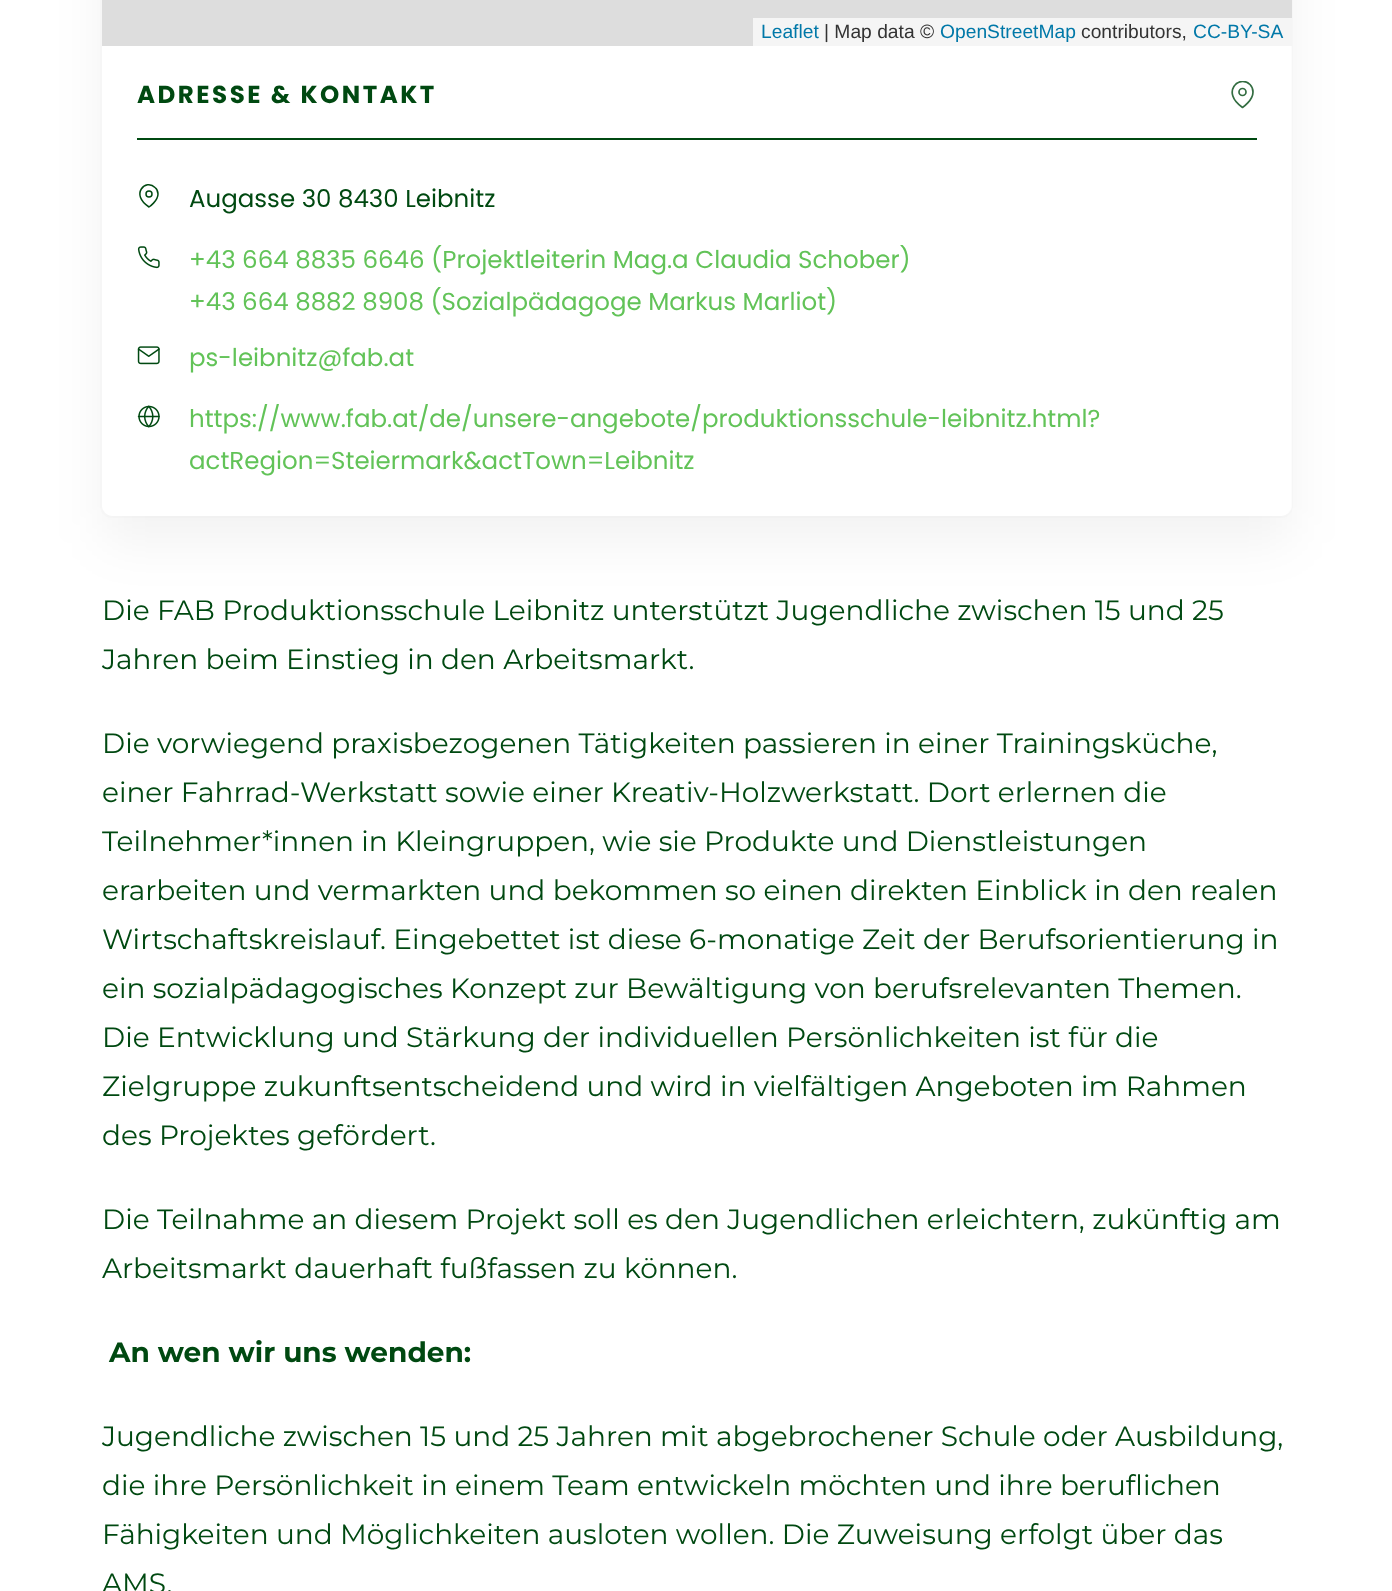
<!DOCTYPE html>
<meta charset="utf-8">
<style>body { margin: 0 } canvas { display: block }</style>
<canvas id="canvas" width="1392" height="1591"></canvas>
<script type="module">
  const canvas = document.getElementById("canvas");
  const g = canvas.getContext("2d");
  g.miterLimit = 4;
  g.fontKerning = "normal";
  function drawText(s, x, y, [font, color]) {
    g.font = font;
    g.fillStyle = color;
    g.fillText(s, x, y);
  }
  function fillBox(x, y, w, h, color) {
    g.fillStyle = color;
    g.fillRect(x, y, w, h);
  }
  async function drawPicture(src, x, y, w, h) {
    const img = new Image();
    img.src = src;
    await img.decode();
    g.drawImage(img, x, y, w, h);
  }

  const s1 = ["19.25px Liberation Sans", "#0078A8"];
  const s2 = ["19.25px Liberation Sans", "#333333"];
  const s3 = ["bold 24.5px Poppins", "#004911"];
  const s4 = ["24.5px Poppins", "#004911"];
  const s5 = ["24.5px Poppins", "#62C358"];
  const s6 = ["28px Montserrat", "#004911"];
  const s7 = ["bold 28px Montserrat", "#004911"];

  fillBox(0, 0, 1392, 1591, "#FFFFFF");
  g.beginPath();
  g.roundRect(101, -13, 1191, 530, 11);
  g.strokeStyle = "#FCFCFC";
  g.lineWidth = 2;
  g.stroke();
  g.save();
  g.beginPath();
  g.moveTo(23, 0);
  g.lineTo(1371, 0);
  g.lineTo(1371, 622);
  g.lineTo(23, 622);
  g.closePath();
  g.moveTo(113, -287);
  g.lineTo(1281, -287);
  g.bezierCurveTo(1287, -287, 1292, -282, 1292, -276);
  g.lineTo(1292, 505);
  g.bezierCurveTo(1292, 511, 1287, 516, 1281, 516);
  g.lineTo(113, 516);
  g.bezierCurveTo(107, 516, 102, 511, 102, 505);
  g.lineTo(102, -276);
  g.bezierCurveTo(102, -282, 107, -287, 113, -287);
  g.closePath();
  g.clip("evenodd");
  g.fillStyle = "rgba(0, 0, 0, 0.05)";
  g.filter = "blur(26px)";
  g.beginPath();
  g.roundRect(102, -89, 1190, 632, 11);
  g.fill();
  g.filter = "none";
  g.restore();
  fillBox(102, 0, 1190, 46, "#DDDDDD");
  fillBox(753, 18, 539, 28, "#F5F5F5");
  drawText("Leaflet", 761, 38, s1);
  drawText("| Map data ©", 824, 38, s2);
  drawText("OpenStreetMap", 940, 38, s1);
  drawText("contributors,", 1081, 38, s2);
  drawText("CC-BY-SA", 1193, 38, s1);
  fillBox(137, 138, 1120, 2, "#004911");
  g.letterSpacing = "2.5px";
  drawText("ADRESSE & KONTAKT", 137, 103, s3);
  g.save();
  g.beginPath();
  g.rect(1229, 81, 28, 28);
  g.clip();
  g.beginPath();
  g.moveTo(1253, 92);
  g.bezierCurveTo(1253, 100.5, 1242.5, 107.5, 1242.5, 107.5);
  g.bezierCurveTo(1220.5, 92.5, 1239, 74, 1250, 84.5);
  g.bezierCurveTo(1252, 86.5, 1253, 89.5, 1253, 92);
  g.closePath();
  g.strokeStyle = "#336D41";
  g.lineWidth = 1.7;
  g.lineCap = "round";
  g.lineJoin = "round";
  g.stroke();
  g.restore();
  g.beginPath();
  g.arc(1242.5, 92, 3.5, 0, Math.PI * 2);
  g.strokeStyle = "#336D41";
  g.lineWidth = 1.7;
  g.stroke();
  g.beginPath();
  g.moveTo(158, 194);
  g.bezierCurveTo(158, 201, 149, 207, 149, 207);
  g.bezierCurveTo(129.5, 194.5, 146, 178, 155, 187.5);
  g.bezierCurveTo(157, 189, 158, 191.5, 158, 194);
  g.closePath();
  g.strokeStyle = "#004911";
  g.lineWidth = 1.5;
  g.lineCap = "round";
  g.lineJoin = "round";
  g.stroke();
  g.beginPath();
  g.arc(149, 194, 3, 0, Math.PI * 2);
  g.stroke();
  g.letterSpacing = "0px";
  drawText("Augasse 30 8430 Leibnitz", 189, 207, s4);
  await drawPicture("pic1.png", 137, 246, 23, 23);
  drawText("+43 664 8835 6646 (Projektleiterin Mag.a Claudia Schober)", 189, 268, s5);
  drawText("+43 664 8882 8908 (Sozialpädagoge Markus Marliot)", 189, 310, s5);
  await drawPicture("pic2.png", 137, 346, 23, 19);
  drawText("ps-leibnitz@fab.at", 189, 366, s5);
  await drawPicture("pic3.png", 137, 405, 23, 23);
  drawText("https://www.fab.at/de/unsere-angebote/produktionsschule-leibnitz.html?", 189, 427, s5);
  drawText("actRegion=Steiermark&actTown=Leibnitz", 189, 469, s5);
  drawText("Die FAB Produktionsschule Leibnitz unterstützt Jugendliche zwischen 15 und 25", 102, 620, s6);
  drawText("Jahren beim Einstieg in den Arbeitsmarkt.", 102, 669, s6);
  drawText("Die vorwiegend praxisbezogenen Tätigkeiten passieren in einer Trainingsküche,", 102, 753, s6);
  drawText("einer Fahrrad-Werkstatt sowie einer Kreativ-Holzwerkstatt. Dort erlernen die", 102, 802, s6);
  drawText("Teilnehmer*innen in Kleingruppen, wie sie Produkte und Dienstleistungen", 102, 851, s6);
  drawText("erarbeiten und vermarkten und bekommen so einen direkten Einblick in den realen", 102, 900, s6);
  drawText("Wirtschaftskreislauf. Eingebettet ist diese 6-monatige Zeit der Berufsorientierung in", 102, 949, s6);
  drawText("ein sozialpädagogisches Konzept zur Bewältigung von berufsrelevanten Themen.", 102, 998, s6);
  drawText("Die Entwicklung und Stärkung der individuellen Persönlichkeiten ist für die", 102, 1047, s6);
  drawText("Zielgruppe zukunftsentscheidend und wird in vielfältigen Angeboten im Rahmen", 102, 1096, s6);
  drawText("des Projektes gefördert.", 102, 1145, s6);
  drawText("Die Teilnahme an diesem Projekt soll es den Jugendlichen erleichtern, zukünftig am", 102, 1229, s6);
  drawText("Arbeitsmarkt dauerhaft fußfassen zu können.", 102, 1278, s6);
  drawText("An wen wir uns wenden:", 109, 1362, s7);
  drawText("Jugendliche zwischen 15 und 25 Jahren mit abgebrochener Schule oder Ausbildung,", 102, 1446, s6);
  drawText("die ihre Persönlichkeit in einem Team entwickeln möchten und ihre beruflichen", 102, 1495, s6);
  drawText("Fähigkeiten und Möglichkeiten ausloten wollen. Die Zuweisung erfolgt über das", 102, 1544, s6);
  drawText("AMS.", 102, 1593, s6);
</script>
